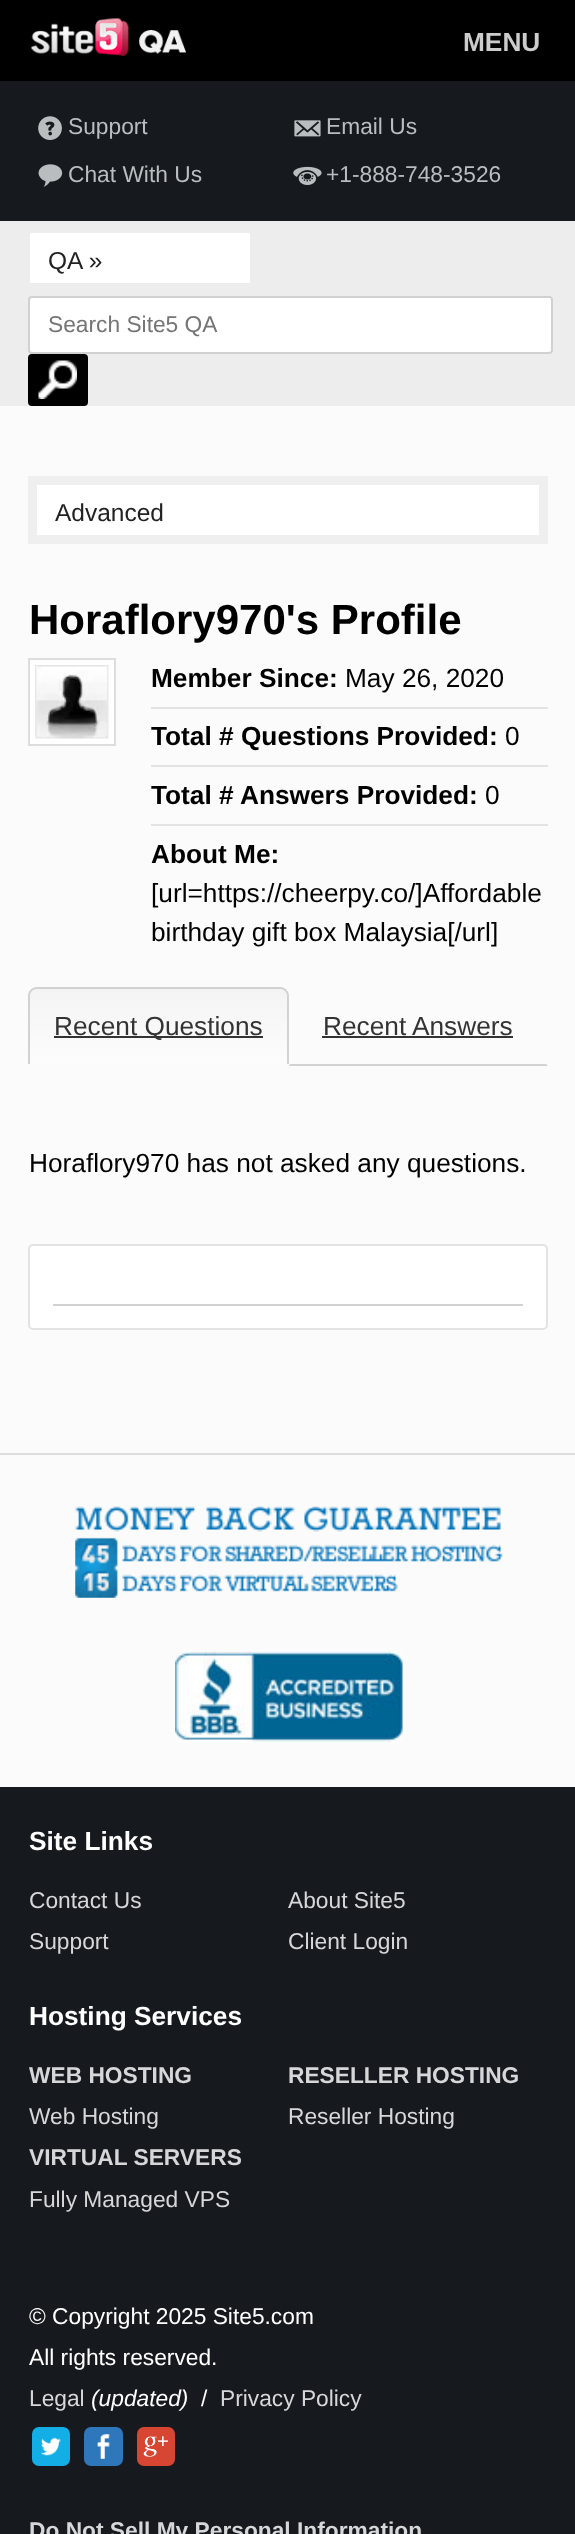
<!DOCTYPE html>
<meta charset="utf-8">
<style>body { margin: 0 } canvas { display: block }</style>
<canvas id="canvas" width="575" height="2534"></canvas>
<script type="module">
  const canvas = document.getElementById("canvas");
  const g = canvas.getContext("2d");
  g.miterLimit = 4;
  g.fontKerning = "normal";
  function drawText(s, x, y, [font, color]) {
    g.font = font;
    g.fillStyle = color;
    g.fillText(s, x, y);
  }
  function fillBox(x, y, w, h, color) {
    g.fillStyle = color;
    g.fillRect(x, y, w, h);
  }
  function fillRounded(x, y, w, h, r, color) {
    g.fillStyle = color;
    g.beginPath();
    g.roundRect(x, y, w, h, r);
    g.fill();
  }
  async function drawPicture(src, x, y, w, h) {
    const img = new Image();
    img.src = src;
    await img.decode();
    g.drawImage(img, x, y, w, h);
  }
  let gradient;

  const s1 = ["bold 26.25px Liberation Sans", "#CCCCCC"];
  const s2 = ["22.75px Liberation Sans", "#BABDBF"];
  const s3 = ["24.5px Liberation Sans", "#222222"];
  const s4 = ["22.75px Liberation Sans", "#757575"];
  const s5 = ["bold 42px Liberation Sans", "#000000"];
  const s6 = ["bold 26.25px Liberation Sans", "#000000"];
  const s7 = ["26.25px Liberation Sans", "#000000"];
  const s8 = ["26.25px Liberation Sans", "#333333"];
  const s9 = ["bold 26.25px Liberation Sans", "#FFFFFF"];
  const s10 = ["22.75px Liberation Sans", "#D6D7D9"];
  const s11 = ["bold 22.75px Liberation Sans", "#D6D7D9"];
  const s12 = ["22.75px Liberation Sans", "#FFFFFF"];
  const s13 = ["italic 22.75px Liberation Sans", "#FFFFFF"];

  fillBox(0, 0, 575, 2534, "#FBFBFB");
  fillBox(0, 0, 575, 81, "#000000");
  await drawPicture("pic1.png", 31, 18, 155, 38);
  drawText("MENU", 463, 51, s1);
  fillBox(0, 81, 575, 140, "#16191E");
  await drawPicture("pic2.png", 38, 116, 24, 24);
  drawText("Support", 68, 134, s2);
  await drawPicture("pic3.png", 294, 120, 27, 17);
  drawText("Email Us", 326, 134, s2);
  await drawPicture("pic4.png", 38, 164, 25, 23);
  drawText("Chat With Us", 68, 182, s2);
  await drawPicture("pic5.png", 293, 166, 29, 20);
  drawText("+1-888-748-3526", 326, 182, s2);
  fillBox(0, 221, 575, 185, "#EDEDED");
  fillBox(30, 233, 220, 50, "#FFFFFF");
  drawText("QA »", 48, 269, s3);
  g.fillStyle = "#FFFFFF";
  g.beginPath();
  g.roundRect(29, 297, 523, 56, 3);
  g.fill();
  g.strokeStyle = "#D1D1D1";
  g.lineWidth = 2;
  g.stroke();
  drawText("Search Site5 QA", 48, 332, s4);
  fillRounded(28, 354, 60, 52, 4, "#000000");
  await drawPicture("pic6.png", 38, 360, 39, 39);
  g.fillStyle = "#FFFFFF";
  g.beginPath();
  g.rect(32.5, 480.5, 511, 59);
  g.fill();
  g.strokeStyle = "#EFEFEF";
  g.lineWidth = 9;
  g.stroke();
  drawText("Advanced", 55, 521, s3);
  drawText("Horaflory970's Profile", 29, 634, s5);
  g.fillStyle = "#FFFFFF";
  g.beginPath();
  g.rect(29, 659, 86, 86);
  g.fill();
  g.strokeStyle = "#DDDDDD";
  g.lineWidth = 2;
  g.stroke();
  await drawPicture("pic7.png", 35, 665, 74, 74);
  drawText("Member Since:", 151, 687, s6);
  drawText("May 26, 2020", 345, 687, s7);
  fillBox(151, 707, 397, 2, "#E3E3E3");
  drawText("Total # Questions Provided:", 151, 745, s6);
  drawText("0", 505, 745, s7);
  fillBox(151, 765, 397, 2, "#E3E3E3");
  drawText("Total # Answers Provided:", 151, 804, s6);
  drawText("0", 485, 804, s7);
  fillBox(151, 824, 397, 2, "#E3E3E3");
  drawText("About Me:", 151, 863, s6);
  drawText("[url=https://cheerpy.co/]Affordable", 151, 902, s7);
  drawText("birthday gift box Malaysia[/url]", 151, 941, s7);
  gradient = g.createLinearGradient(158, 989, 158, 1064);
  gradient.addColorStop(0, "#F4F4F4");
  gradient.addColorStop(1, "#FCFCFC");
  g.fillStyle = gradient;
  g.beginPath();
  g.roundRect(30, 989, 257, 75, [7, 7, 0, 0]);
  g.fill();
  g.fillStyle = "#D2D2D2";
  g.beginPath();
  g.moveTo(37, 987);
  g.lineTo(280, 987);
  g.bezierCurveTo(285, 987, 289, 991, 289, 996);
  g.lineTo(289, 1064);
  g.lineTo(28, 1064);
  g.lineTo(28, 996);
  g.bezierCurveTo(28, 991, 32, 987, 37, 987);
  g.closePath();
  g.moveTo(37, 989);
  g.lineTo(280, 989);
  g.bezierCurveTo(284, 989, 287, 992, 287, 996);
  g.lineTo(287, 1064);
  g.lineTo(30, 1064);
  g.lineTo(30, 996);
  g.bezierCurveTo(30, 992, 33, 989, 37, 989);
  g.closePath();
  g.fill("evenodd");
  fillBox(54, 1036, 209, 2, "#333333");
  drawText("Recent Questions", 54, 1035, s8);
  g.fillStyle = "#D2D2D2";
  g.beginPath();
  g.moveTo(548, 1066);
  g.lineTo(289, 1066);
  g.lineTo(290, 1064);
  g.lineTo(546, 1064);
  g.closePath();
  g.fill();
  drawText("Recent Answers", 323, 1035, s8);
  fillBox(322, 1036, 191, 2, "#333333");
  drawText("Horaflory970 has not asked any questions.", 29, 1172, s7);
  g.fillStyle = "#FFFFFF";
  g.beginPath();
  g.roundRect(29, 1245, 518, 84, 4);
  g.fill();
  g.strokeStyle = "#E3E3E3";
  g.stroke();
  fillBox(53, 1304, 470, 2, "#D2D2D2");
  fillBox(0, 1453, 575, 2, "#DDDDDD");
  await drawPicture("pic8.png", 75, 1506, 428, 92);
  await drawPicture("pic9.png", 175, 1650, 228, 93);
  fillBox(0, 1787, 575, 747, "#16191E");
  drawText("Site Links", 29, 1850, s9);
  drawText("Contact Us", 29, 1908, s10);
  drawText("About Site5", 288, 1908, s10);
  drawText("Support", 29, 1949, s10);
  drawText("Client Login", 288, 1949, s10);
  drawText("Hosting Services", 29, 2025, s9);
  drawText("WEB HOSTING", 29, 2083, s11);
  drawText("Web Hosting", 29, 2124, s10);
  drawText("RESELLER HOSTING", 288, 2083, s11);
  drawText("Reseller Hosting", 288, 2124, s10);
  drawText("VIRTUAL SERVERS", 29, 2165, s11);
  drawText("Fully Managed VPS", 29, 2207, s10);
  drawText("© Copyright 2025 Site5.com", 29, 2324, s12);
  drawText("All rights reserved.", 29, 2365, s12);
  drawText("Legal", 29, 2406, s10);
  drawText("(updated)", 91, 2406, s13);
  drawText("/", 201, 2406, s12);
  drawText("Privacy Policy", 220, 2406, s10);
  fillRounded(32, 2427, 38, 39, 7, "#14AEE6");
  await drawPicture("pic10.png", 41, 2437, 20, 19);
  fillRounded(84, 2427, 39, 39, 7, "#2E77BB");
  await drawPicture("pic11.png", 97, 2434, 13, 25);
  fillRounded(137, 2427, 38, 39, 7, "#D74632");
  await drawPicture("pic12.png", 143, 2436, 25, 21);
  drawText("Do Not Sell My Personal Information", 29, 2538, s11);
</script>
